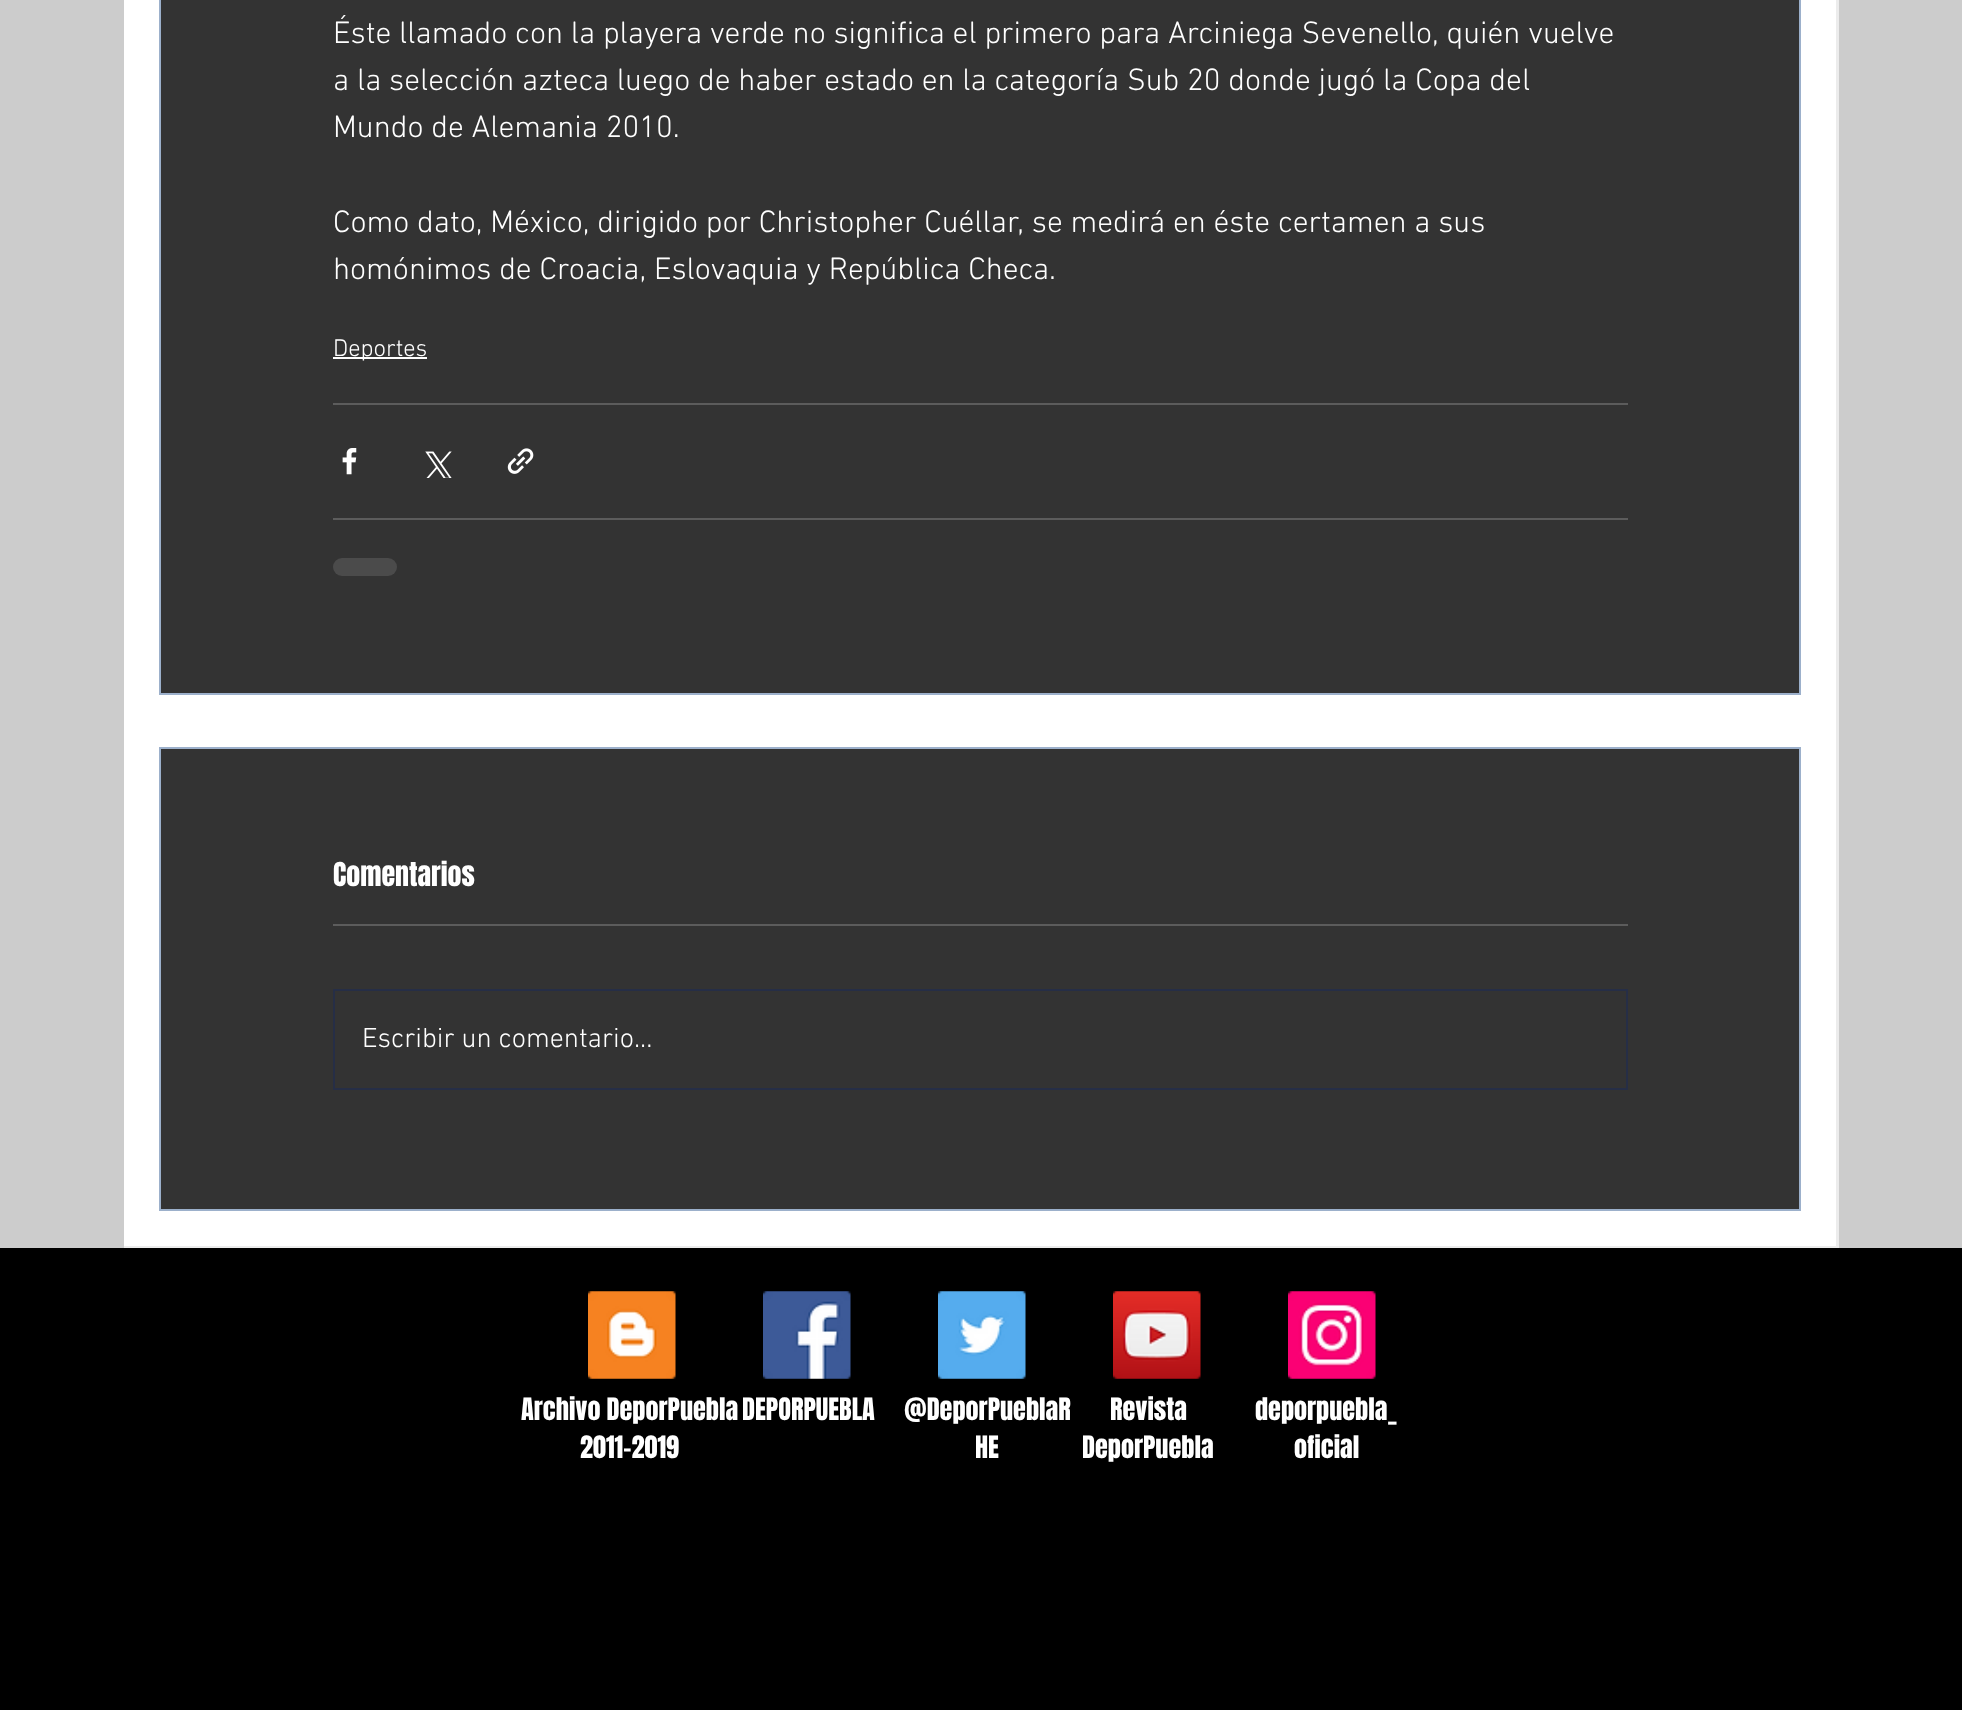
<!DOCTYPE html>
<meta charset="utf-8">
<style>body { margin: 0 } canvas { display: block }</style>
<canvas id="canvas" width="1962" height="1710"></canvas>
<script type="module">
  const canvas = document.getElementById("canvas");
  const g = canvas.getContext("2d");
  g.miterLimit = 4;
  g.fontKerning = "normal";
  function drawText(s, x, y, [font, color]) {
    g.font = font;
    g.fillStyle = color;
    g.fillText(s, x, y);
  }
  function fillBox(x, y, w, h, color) {
    g.fillStyle = color;
    g.fillRect(x, y, w, h);
  }
  function fillRounded(x, y, w, h, r, color) {
    g.fillStyle = color;
    g.beginPath();
    g.roundRect(x, y, w, h, r);
    g.fill();
  }
  async function drawPicture(src, x, y, w, h) {
    const img = new Image();
    img.src = src;
    await img.decode();
    g.drawImage(img, x, y, w, h);
  }

  const s1 = ["300 31.5px 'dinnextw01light'", "#FFFFFF"];
  const s2 = ["300 24.5px 'dinnextw01light'", "#FFFFFF"];
  const s3 = ["28px Anton", "#FFFFFF"];
  const s4 = ["300 28px 'dinnextw01light'", "#FFFFFF"];
  const s5 = ["26.25px Anton", "#FFFFFF"];

  fillBox(0, 0, 1962, 1710, "#CCCCCC");
  fillBox(124, 0, 1715, 1248, "#ECECEC");
  fillBox(124, 0, 1712, 1246, "#FFFFFF");
  g.fillStyle = "#333333";
  g.beginPath();
  g.rect(160, -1, 1640, 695);
  g.fill();
  g.strokeStyle = "#9CB0CB";
  g.lineWidth = 2;
  g.stroke();
  drawText("Éste llamado con la playera verde no significa el primero para Arciniega Sevenello, quién vuelve", 333, 43, s1);
  drawText("a la selección azteca luego de haber estado en la categoría Sub 20 donde jugó la Copa del", 333, 90, s1);
  drawText("Mundo de Alemania 2010.", 333, 137, s1);
  drawText("Como dato, México, dirigido por Christopher Cuéllar, se medirá en éste certamen a sus", 333, 232, s1);
  drawText("homónimos de Croacia, Eslovaquia y República Checa.", 333, 279, s1);
  fillBox(333, 357, 94, 2, "#FFFFFF");
  drawText("Deportes", 333, 356, s2);
  fillBox(333, 403, 1295, 2, "#5C5C5C");
  await drawPicture("pic1.png", 342, 448, 15, 27);
  await drawPicture("pic2.png", 425, 451, 27, 27);
  await drawPicture("pic3.png", 507, 448, 27, 26);
  fillBox(333, 518, 1295, 2, "#5C5C5C");
  fillRounded(333, 558, 64, 18, 9, "#4B4B4B");
  g.fillStyle = "#333333";
  g.beginPath();
  g.rect(160, 748, 1640, 462);
  g.fill();
  g.stroke();
  drawText("Comentarios", 333, 886, s3);
  fillBox(333, 924, 1295, 2, "#5C5C5C");
  g.strokeStyle = "#262E46";
  g.strokeRect(334, 990, 1293, 99);
  drawText("Escribir un comentario...", 362, 1047, s4);
  fillBox(0, 1248, 1962, 462, "#000000");
  await drawPicture("pic4.png", 588, 1291, 88, 88);
  await drawPicture("pic5.png", 763, 1291, 88, 88);
  await drawPicture("pic6.png", 938, 1291, 88, 88);
  await drawPicture("pic7.png", 1113, 1291, 88, 88);
  await drawPicture("pic8.png", 1288, 1291, 88, 88);
  drawText("Archivo DeporPuebla", 521, 1420, s5);
  drawText("2011-2019", 580, 1458, s5);
  drawText("DEPORPUEBLA", 742, 1420, s5);
  drawText("@DeporPueblaR", 904, 1420, s5);
  drawText("HE", 975, 1458, s5);
  drawText("Revista", 1110, 1420, s5);
  drawText("DeporPuebla", 1082, 1458, s5);
  drawText("deporpuebla_", 1255, 1420, s5);
  drawText("oficial", 1294, 1458, s5);
</script>
